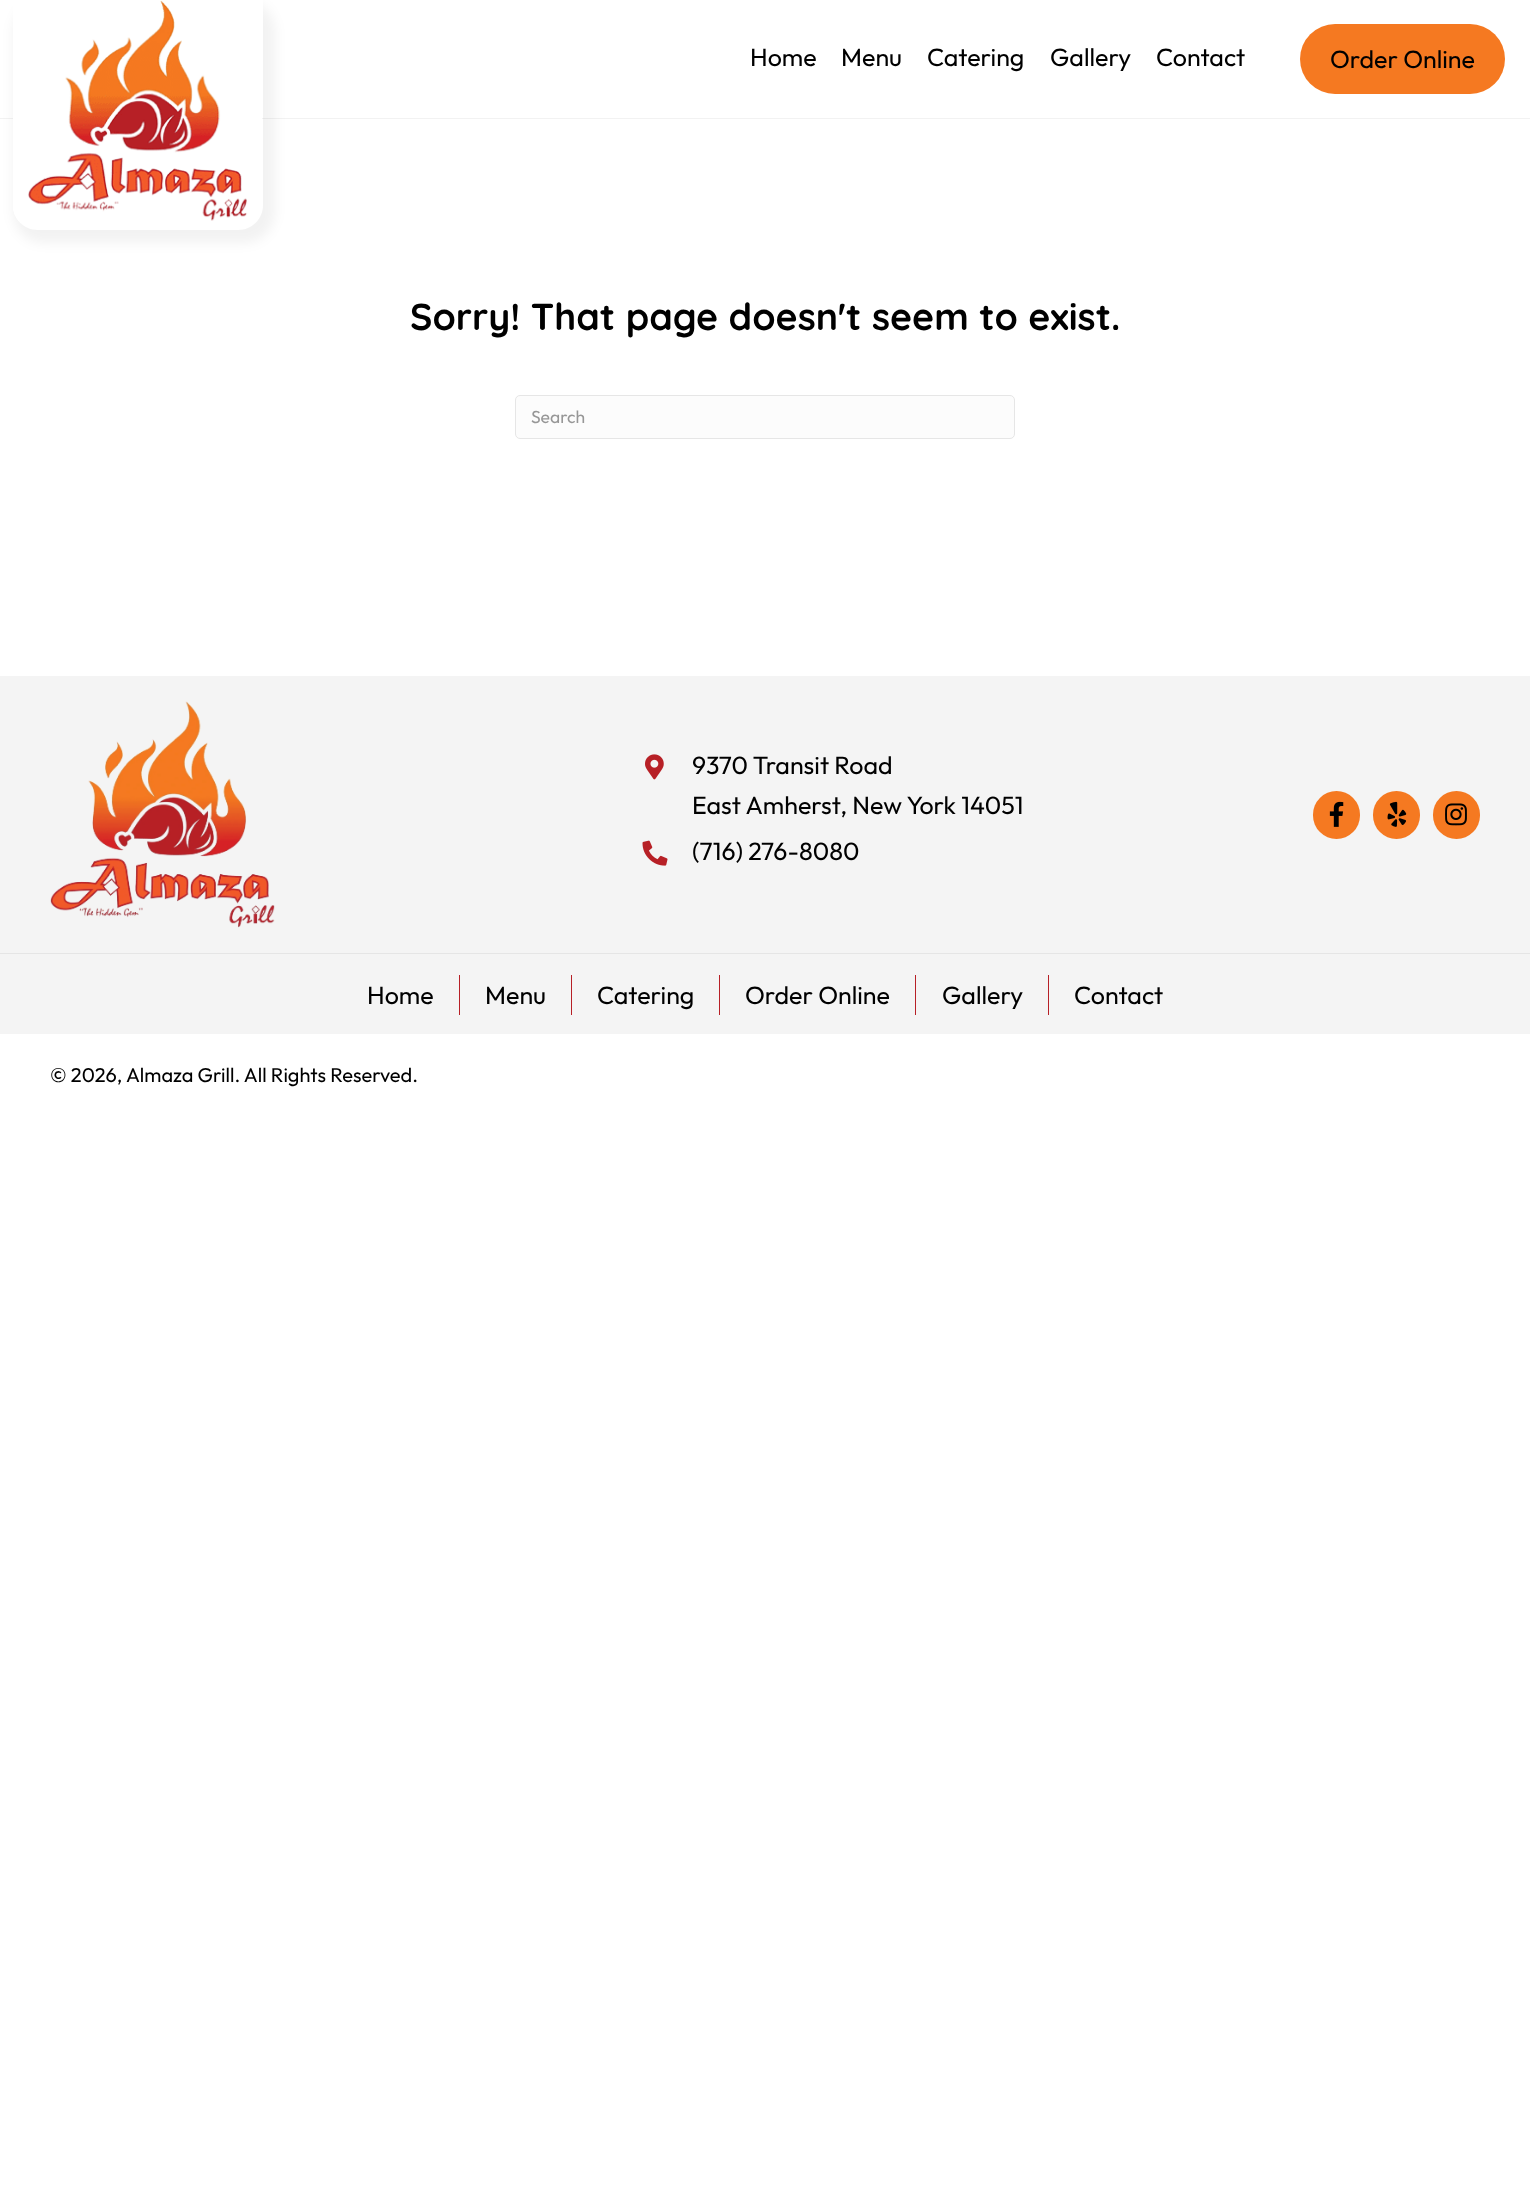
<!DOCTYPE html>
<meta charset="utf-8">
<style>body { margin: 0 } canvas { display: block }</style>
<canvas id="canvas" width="1530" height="2208"></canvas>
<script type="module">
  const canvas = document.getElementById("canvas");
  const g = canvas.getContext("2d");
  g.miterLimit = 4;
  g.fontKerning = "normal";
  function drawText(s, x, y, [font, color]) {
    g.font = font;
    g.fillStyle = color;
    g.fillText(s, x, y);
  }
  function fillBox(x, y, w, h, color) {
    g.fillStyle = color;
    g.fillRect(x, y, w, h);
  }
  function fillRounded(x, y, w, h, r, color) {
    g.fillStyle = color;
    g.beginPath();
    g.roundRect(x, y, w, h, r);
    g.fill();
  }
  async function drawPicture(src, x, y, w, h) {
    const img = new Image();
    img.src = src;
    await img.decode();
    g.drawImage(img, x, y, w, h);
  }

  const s1 = ["25px Outfit", "#000000"];
  const s2 = ["300 37.5px Quicksand", "#000000"];
  const s3 = ["17.5px Outfit", "#979797"];
  const s4 = ["20px Outfit", "#000000"];

  fillBox(0, 0, 1530, 2208, "#FFFFFF");
  fillBox(0, 118, 1530, 1, "#F2F2F2");
  g.save();
  g.beginPath();
  g.moveTo(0, 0);
  g.lineTo(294, 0);
  g.lineTo(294, 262);
  g.lineTo(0, 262);
  g.closePath();
  g.moveTo(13, 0);
  g.lineTo(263, 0);
  g.lineTo(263, 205);
  g.bezierCurveTo(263, 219, 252, 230, 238, 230);
  g.lineTo(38, 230);
  g.bezierCurveTo(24, 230, 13, 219, 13, 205);
  g.closePath();
  g.clip("evenodd");
  g.fillStyle = "rgba(0, 0, 0, 0.05)";
  g.filter = "blur(6px)";
  g.beginPath();
  g.roundRect(13, 0, 262, 243, 31);
  g.fill();
  g.filter = "none";
  g.restore();
  await drawPicture("pic1.png", 13, 0, 249, 221);
  drawText("Home", 750, 66, s1);
  drawText("Menu", 841, 66, s1);
  drawText("Catering", 927, 66, s1);
  drawText("Gallery", 1050, 66, s1);
  drawText("Contact", 1156, 66, s1);
  fillRounded(1300, 24, 205, 70, 35, "#F57921");
  drawText("Order Online", 1330, 68, s1);
  drawText("Sorry! That page doesn't seem to exist.", 410, 330, s2);
  g.fillStyle = "#FCFCFC";
  g.beginPath();
  g.roundRect(515.5, 395.5, 499, 43, 4.5);
  g.fill();
  g.strokeStyle = "#E6E6E6";
  g.stroke();
  drawText("Search", 531, 423, s3);
  fillBox(0, 676, 1530, 277, "#F4F4F4");
  await drawPicture("pic2.png", 50, 701, 225, 227);
  await drawPicture("pic3.png", 645, 754, 19, 26);
  drawText("9370 Transit Road", 692, 774, s1);
  drawText("East Amherst, New York 14051", 692, 814, s1);
  await drawPicture("pic4.png", 642, 840, 26, 26);
  drawText("(716) 276-8080", 692, 860, s1);
  fillRounded(1313, 791, 47, 48, 23.5, "#F57921");
  await drawPicture("pic5.png", 1329, 801, 15, 26);
  fillRounded(1373, 791, 47, 48, 23.5, "#F57921");
  await drawPicture("pic6.png", 1387, 801, 20, 26);
  fillRounded(1433, 791, 47, 48, 23.5, "#F57921");
  await drawPicture("pic7.png", 1445, 803, 22, 23);
  fillBox(0, 954, 1530, 80, "#F4F4F4");
  fillBox(0, 953, 1530, 1, "#E5E5E5");
  drawText("Home", 367, 1004, s1);
  fillBox(459, 975, 1, 40, "#B72026");
  drawText("Menu", 485, 1004, s1);
  fillBox(571, 975, 1, 40, "#B72026");
  drawText("Catering", 597, 1004, s1);
  fillBox(719, 975, 1, 40, "#B72026");
  drawText("Order Online", 745, 1004, s1);
  fillBox(915, 975, 1, 40, "#B72026");
  drawText("Gallery", 942, 1004, s1);
  fillBox(1048, 975, 1, 40, "#B72026");
  drawText("Contact", 1074, 1004, s1);
  drawText("© 2026, Almaza Grill. All Rights Reserved.", 50, 1082, s4);
</script>
